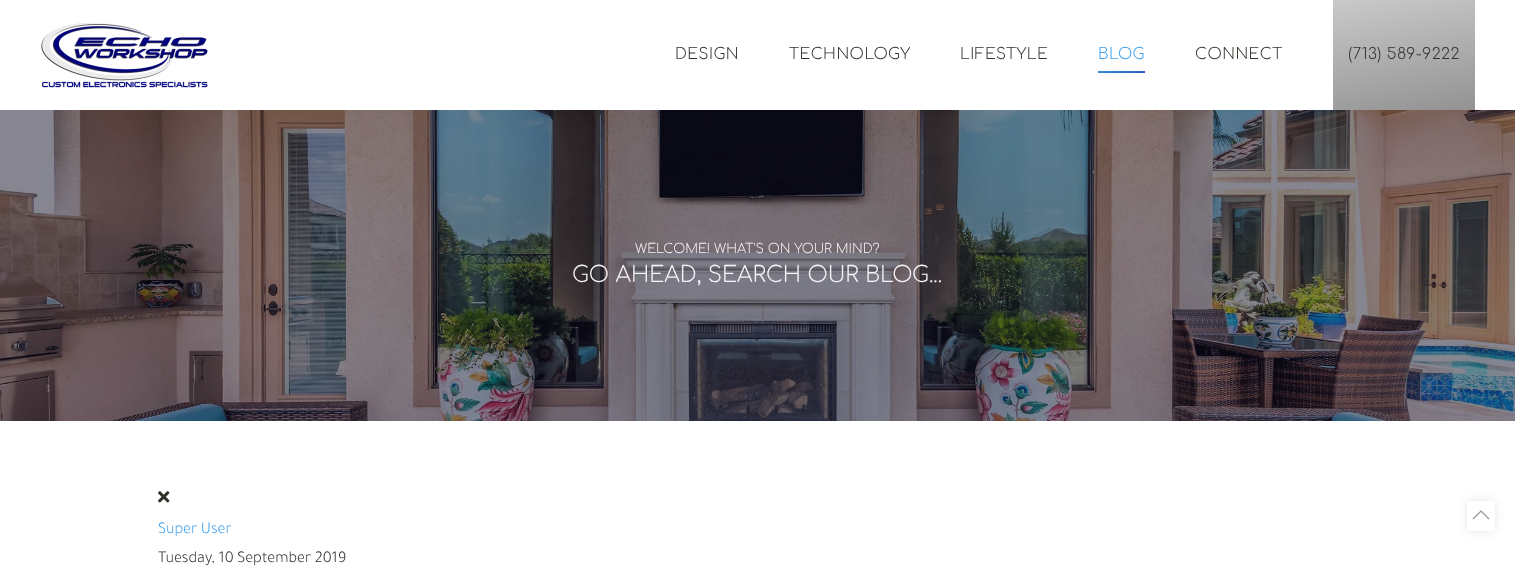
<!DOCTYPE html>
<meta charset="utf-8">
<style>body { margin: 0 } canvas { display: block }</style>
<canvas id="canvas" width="1515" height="571"></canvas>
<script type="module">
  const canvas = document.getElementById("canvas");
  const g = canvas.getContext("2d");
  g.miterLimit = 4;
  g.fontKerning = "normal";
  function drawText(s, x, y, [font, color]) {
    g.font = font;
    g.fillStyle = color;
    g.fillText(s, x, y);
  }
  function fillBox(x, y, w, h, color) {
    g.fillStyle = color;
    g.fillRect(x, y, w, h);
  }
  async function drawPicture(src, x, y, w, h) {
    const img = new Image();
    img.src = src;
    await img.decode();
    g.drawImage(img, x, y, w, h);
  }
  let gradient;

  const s1 = ["300 15.5px Comfortaa", "#32322C"];
  const s2 = ["300 15.5px Comfortaa", "#3CA0ED"];
  const s3 = ["300 15.5px Comfortaa", "#333333"];
  const s4 = ["300 13px Comfortaa", "#F4F4F7"];
  const s5 = ["300 22px Comfortaa", "#F4F4F7"];
  const s6 = ["300 16.5px Tajawal", "#3CA0ED"];
  const s7 = ["300 16.5px Tajawal", "#32322C"];

  fillBox(0, 0, 1515, 571, "#FFFFFF");
  await drawPicture("pic1.png", 41, 22, 167, 66);
  g.letterSpacing = "0.5px";
  drawText("DESIGN", 675, 59, s1);
  drawText("TECHNOLOGY", 789, 59, s1);
  drawText("LIFESTYLE", 960, 59, s1);
  drawText("BLOG", 1098, 59, s2);
  gradient = g.createLinearGradient(1122, 77, 1121, 67);
  gradient.addColorStop(0, "#204BAE");
  gradient.addColorStop(1, "#3CA0ED");
  g.fillStyle = gradient;
  g.fillRect(1098, 71, 47, 2);
  drawText("CONNECT", 1195, 59, s1);
  gradient = g.createLinearGradient(1416, 120, 1392, -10);
  gradient.addColorStop(0, "#939393");
  gradient.addColorStop(1, "#C9C9C9");
  g.fillStyle = gradient;
  g.fillRect(1333, 0, 142, 110);
  drawText("(713) 589-9222", 1348, 59, s3);
  await drawPicture("pic2.png", 0, 110, 1515, 311);
  g.letterSpacing = "0px";
  drawText("WELCOME! WHAT'S ON YOUR MIND?", 635, 253, s4);
  drawText("GO AHEAD, SEARCH OUR BLOG...", 572, 282, s5);
  await drawPicture("pic3.png", 158, 491, 12, 12);
  drawText("Super User", 158, 533, s6);
  drawText("Tuesday, 10 September 2019", 158, 562, s7);
  g.save();
  g.beginPath();
  g.moveTo(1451, 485);
  g.lineTo(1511, 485);
  g.lineTo(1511, 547);
  g.lineTo(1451, 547);
  g.closePath();
  g.moveTo(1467, 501);
  g.lineTo(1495, 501);
  g.lineTo(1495, 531);
  g.lineTo(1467, 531);
  g.closePath();
  g.clip("evenodd");
  g.fillStyle = "rgba(0, 0, 0, 0.1)";
  g.filter = "blur(5px)";
  g.beginPath();
  g.rect(1467, 501, 28, 30);
  g.fill();
  g.filter = "none";
  g.restore();
  g.beginPath();
  g.moveTo(1473, 519);
  g.lineTo(1481, 511);
  g.lineTo(1489, 519);
  g.strokeStyle = "#959595";
  g.lineWidth = 1.2;
  g.stroke();
</script>
